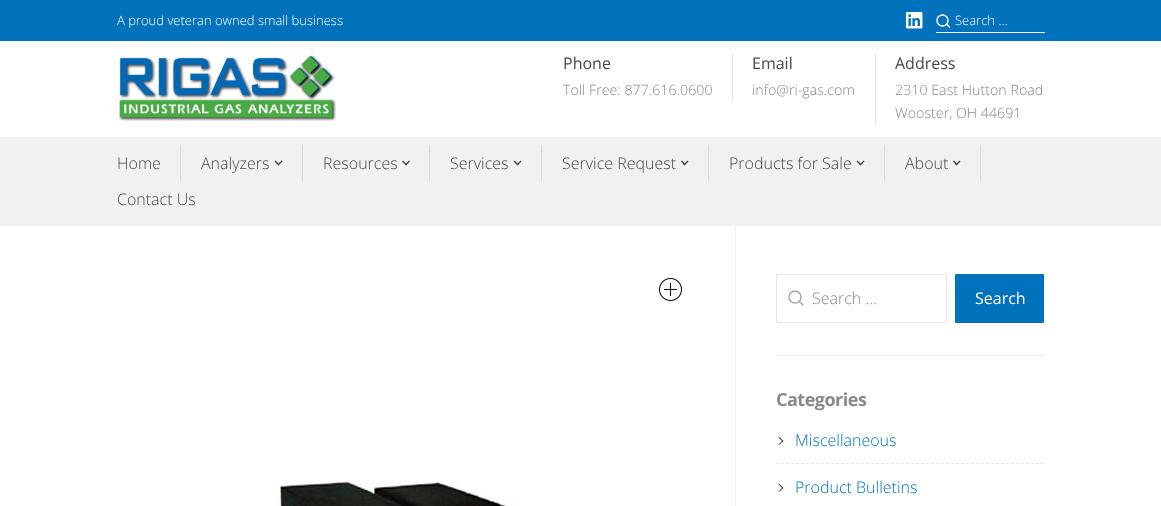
<!DOCTYPE html>
<meta charset="utf-8">
<style>body { margin: 0 } canvas { display: block }</style>
<canvas id="canvas" width="1161" height="506"></canvas>
<script type="module">
  const canvas = document.getElementById("canvas");
  const g = canvas.getContext("2d");
  g.miterLimit = 4;
  g.fontKerning = "normal";
  function drawText(s, x, y, [font, color]) {
    g.font = font;
    g.fillStyle = color;
    g.fillText(s, x, y);
  }
  function fillBox(x, y, w, h, color) {
    g.fillStyle = color;
    g.fillRect(x, y, w, h);
  }
  function fillRounded(x, y, w, h, r, color) {
    g.fillStyle = color;
    g.beginPath();
    g.roundRect(x, y, w, h, r);
    g.fill();
  }
  async function drawPicture(src, x, y, w, h) {
    const img = new Image();
    img.src = src;
    await img.decode();
    g.drawImage(img, x, y, w, h);
  }

  const s1 = ["300 13px Open Sans", "#FFFFFF"];
  const s2 = ["16px Open Sans", "#464646"];
  const s3 = ["300 14.25px Open Sans", "#888989"];
  const s4 = ["300 16px Open Sans", "#464646"];
  const s5 = ["300 16px Open Sans", "#888989"];
  const s6 = ["16px Open Sans", "#FFFFFF"];
  const s7 = ["bold 18px Open Sans", "#888989"];
  const s8 = ["300 16px Open Sans", "#0072BC"];

  fillBox(0, 0, 1161, 506, "#FFFFFF");
  fillBox(0, 137, 1161, 89, "#F1F1F1");
  fillBox(0, 0, 1161, 41, "#0072BC");
  drawText("A proud veteran owned small business", 117, 25, s1);
  await drawPicture("pic1.png", 906, 12, 17, 17);
  g.beginPath();
  g.arc(942.5, 20.5, 5.5, 0, Math.PI * 2);
  g.strokeStyle = "#FFFFFF";
  g.lineWidth = 1.4;
  g.stroke();
  g.beginPath();
  g.moveTo(949.5, 27);
  g.lineTo(946.5, 24);
  g.lineCap = "round";
  g.lineJoin = "round";
  g.stroke();
  fillBox(936, 32, 109, 1, "#FFFFFF");
  drawText("Search …", 955, 25, s1);
  await drawPicture("pic2.png", 119, 55, 217, 66);
  drawText("Phone", 563, 69, s2);
  drawText("Toll Free: 877.616.0600", 563, 95, s3);
  fillBox(732, 53, 1, 49, "#E6E6E6");
  drawText("Email", 752, 69, s2);
  drawText("info@ri-gas.com", 752, 95, s3);
  fillBox(875, 53, 1, 72, "#E6E6E6");
  drawText("Address", 895, 69, s2);
  drawText("2310 East Hutton Road", 895, 95, s3);
  drawText("Wooster, OH 44691", 895, 118, s3);
  fillBox(180, 145, 1, 36, "#D9D9D9");
  drawText("Home", 117, 169, s4);
  fillBox(302, 145, 1, 36, "#D9D9D9");
  drawText("Analyzers", 201, 169, s4);
  g.beginPath();
  g.moveTo(274.5, 161.5);
  g.lineTo(275.5, 160.5);
  g.lineTo(279.5, 164.5);
  g.lineTo(278.5, 165.5);
  g.closePath();
  g.fill();
  g.beginPath();
  g.moveTo(277.5, 164.5);
  g.lineTo(281.5, 160.5);
  g.lineTo(282.5, 161.5);
  g.lineTo(278.5, 165.5);
  g.closePath();
  g.fill();
  fillBox(429, 145, 1, 36, "#D9D9D9");
  drawText("Resources", 323, 169, s4);
  g.beginPath();
  g.moveTo(402, 161.5);
  g.lineTo(403, 160.5);
  g.lineTo(407, 164.5);
  g.lineTo(406, 165.5);
  g.closePath();
  g.fill();
  g.beginPath();
  g.moveTo(405, 164.5);
  g.lineTo(409, 160.5);
  g.lineTo(410, 161.5);
  g.lineTo(406, 165.5);
  g.closePath();
  g.fill();
  fillBox(541, 145, 1, 36, "#D9D9D9");
  drawText("Services", 450, 169, s4);
  g.beginPath();
  g.moveTo(513.5, 161.5);
  g.lineTo(514.5, 160.5);
  g.lineTo(518.5, 164.5);
  g.lineTo(517.5, 165.5);
  g.closePath();
  g.fill();
  g.beginPath();
  g.moveTo(516.5, 164.5);
  g.lineTo(520.5, 160.5);
  g.lineTo(521.5, 161.5);
  g.lineTo(517.5, 165.5);
  g.closePath();
  g.fill();
  fillBox(708, 145, 1, 36, "#D9D9D9");
  drawText("Service Request", 562, 169, s4);
  g.beginPath();
  g.moveTo(681, 161.5);
  g.lineTo(682, 160.5);
  g.lineTo(685.5, 164.5);
  g.lineTo(684.5, 165.5);
  g.closePath();
  g.fill();
  g.beginPath();
  g.moveTo(683.5, 164.5);
  g.lineTo(687.5, 160.5);
  g.lineTo(688.5, 161.5);
  g.lineTo(684.5, 165.5);
  g.closePath();
  g.fill();
  fillBox(884, 145, 1, 36, "#D9D9D9");
  drawText("Products for Sale", 729, 169, s4);
  g.beginPath();
  g.moveTo(856.5, 161.5);
  g.lineTo(857.5, 160.5);
  g.lineTo(861.5, 164.5);
  g.lineTo(860.5, 165.5);
  g.closePath();
  g.fill();
  g.beginPath();
  g.moveTo(859.5, 164.5);
  g.lineTo(863.5, 160.5);
  g.lineTo(864.5, 161.5);
  g.lineTo(860.5, 165.5);
  g.closePath();
  g.fill();
  fillBox(980, 145, 1, 36, "#D9D9D9");
  drawText("About", 905, 169, s4);
  g.beginPath();
  g.moveTo(953, 161.5);
  g.lineTo(954, 160.5);
  g.lineTo(957.5, 164.5);
  g.lineTo(956.5, 165.5);
  g.closePath();
  g.fill();
  g.beginPath();
  g.moveTo(955.5, 164.5);
  g.lineTo(959.5, 160.5);
  g.lineTo(960.5, 161.5);
  g.lineTo(956.5, 165.5);
  g.closePath();
  g.fill();
  drawText("Contact Us", 117, 205, s4);
  await drawPicture("pic3.png", 659, 278, 23, 23);
  await drawPicture("pic4.png", 277, 480, 242, 26);
  fillBox(735, 226, 1, 280, "#F1F1F1");
  g.beginPath();
  g.roundRect(776.5, 274.5, 170, 48, 0.5);
  g.strokeStyle = "#E5E5E5";
  g.lineWidth = 1;
  g.lineJoin = "miter";
  g.stroke();
  g.beginPath();
  g.arc(795, 297, 6, 0, Math.PI * 2);
  g.strokeStyle = "#A6A6A6";
  g.lineWidth = 1.5;
  g.stroke();
  g.beginPath();
  g.moveTo(803, 305);
  g.lineTo(799.5, 301.5);
  g.lineJoin = "round";
  g.stroke();
  drawText("Search …", 812, 304, s5);
  fillRounded(955, 274, 89, 49, 1, "#0072BC");
  drawText("Search", 975, 304, s6);
  fillBox(776, 355, 268, 1, "#F1F1F1");
  g.letterSpacing = "-0.5px";
  drawText("Categories", 776, 406, s7);
  g.fillStyle = "#464646";
  g.beginPath();
  g.moveTo(778.5, 437.5);
  g.lineTo(779, 436.5);
  g.lineTo(783.5, 441);
  g.lineTo(782.5, 441.5);
  g.closePath();
  g.fill();
  g.beginPath();
  g.moveTo(778.5, 444.5);
  g.lineTo(782.5, 440.5);
  g.lineTo(783.5, 441);
  g.lineTo(779, 445);
  g.closePath();
  g.fill();
  g.letterSpacing = "0px";
  drawText("Miscellaneous", 795, 446, s8);
  g.beginPath();
  g.moveTo(776, 463.5);
  g.lineTo(1044, 463.5);
  g.strokeStyle = "#E6E6E6";
  g.lineWidth = 1;
  g.lineCap = "butt";
  g.lineJoin = "miter";
  g.setLineDash([3, 2]);
  g.stroke();
  g.fillStyle = "#464646";
  g.beginPath();
  g.moveTo(778.5, 484.5);
  g.lineTo(779, 483.5);
  g.lineTo(783.5, 488);
  g.lineTo(782.5, 488.5);
  g.closePath();
  g.fill();
  g.beginPath();
  g.moveTo(778.5, 491.5);
  g.lineTo(782.5, 487.5);
  g.lineTo(783.5, 488);
  g.lineTo(779, 492);
  g.closePath();
  g.fill();
  drawText("Product Bulletins", 795, 493, s8);
</script>
